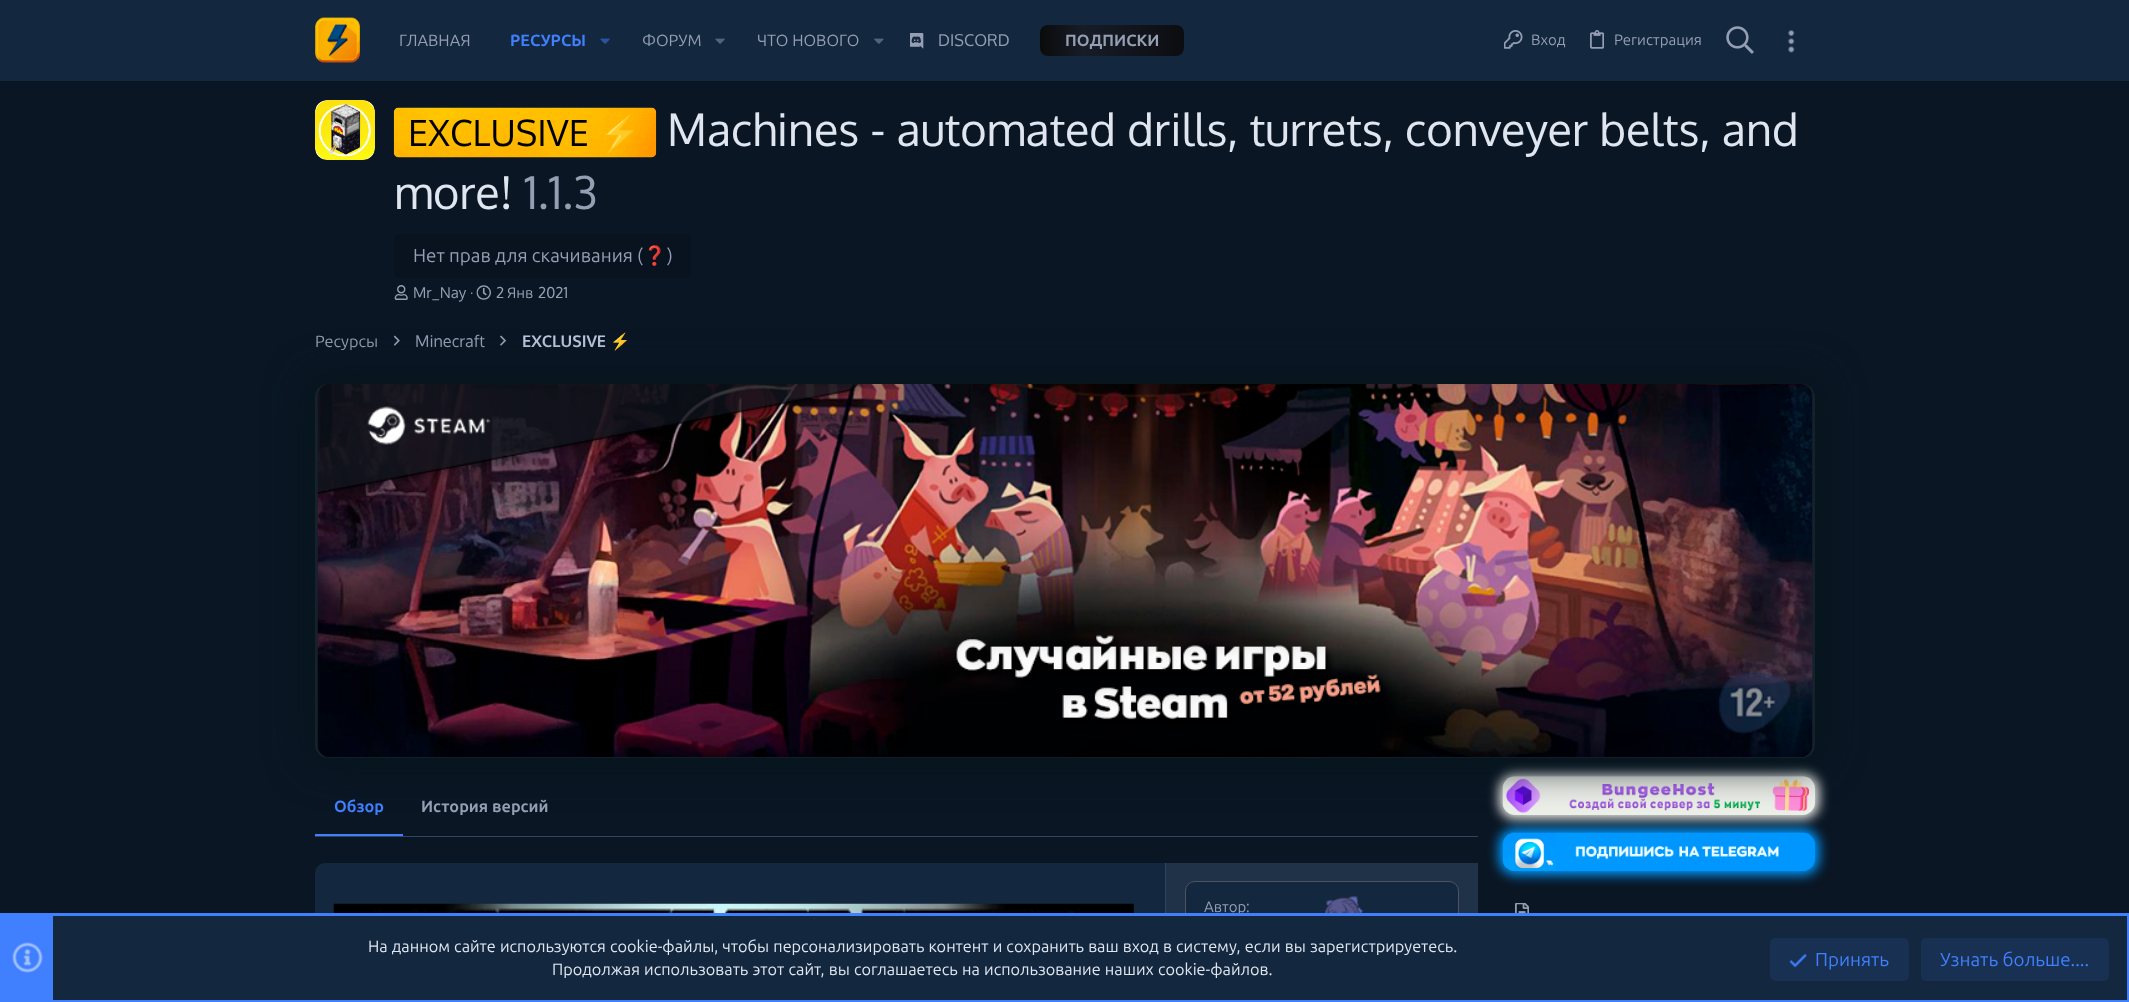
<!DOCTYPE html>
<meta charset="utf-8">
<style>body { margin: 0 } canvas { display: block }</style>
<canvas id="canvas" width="2129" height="1002"></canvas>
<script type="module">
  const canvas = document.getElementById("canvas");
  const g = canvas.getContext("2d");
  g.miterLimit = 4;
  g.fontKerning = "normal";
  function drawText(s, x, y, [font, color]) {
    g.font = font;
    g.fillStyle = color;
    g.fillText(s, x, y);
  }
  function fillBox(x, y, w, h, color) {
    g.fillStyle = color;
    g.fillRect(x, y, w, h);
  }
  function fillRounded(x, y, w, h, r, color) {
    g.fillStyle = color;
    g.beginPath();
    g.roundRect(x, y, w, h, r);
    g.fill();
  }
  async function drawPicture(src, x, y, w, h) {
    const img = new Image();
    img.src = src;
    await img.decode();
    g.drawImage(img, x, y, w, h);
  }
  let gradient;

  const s1 = ["16.25px Ubuntu", "#959FB4"];
  const s2 = ["bold 16.25px Ubuntu", "#4080FF"];
  const s3 = ["16.25px Oxygen", "#959FB4"];
  const s4 = ["bold 16.25px Ubuntu", "#959FB4"];
  const s5 = ["15px Ubuntu", "#959FB4"];
  const s6 = ["36px Oxygen", "#000000"];
  const s7 = ["36px Noto Color Emoji", "#000000"];
  const s8 = ["45px Oxygen", "#E0E6F0"];
  const s9 = ["45px Oxygen", "#959FB4"];
  const s10 = ["18.75px Ubuntu", "#959FB4"];
  const s11 = ["18.75px Noto Color Emoji", "#959FB4"];
  const s12 = ["15px Oxygen", "#959FB4"];
  const s13 = ["bold 16.25px Oxygen", "#BDC6DB"];
  const s14 = ["bold 16.25px Noto Color Emoji", "#BDC6DB"];
  const s15 = ["16.25px Ubuntu", "#E0E6F0"];
  const s16 = ["18.75px Ubuntu", "#4080FF"];

  fillBox(0, 0, 2129, 1002, "#0A1624");
  fillBox(0, 0, 2129, 81, "#13273F");
  await drawPicture("pic1.png", 315, 17, 45, 46);
  drawText("ГЛАВНАЯ", 399, 46, s1);
  drawText("РЕСУРСЫ", 510, 46, s2);
  await drawPicture("pic2.png", 600, 38, 10, 6);
  drawText("ФОРУМ", 642, 46, s1);
  await drawPicture("pic3.png", 715, 38, 10, 6);
  drawText("ЧТО НОВОГО", 757, 46, s1);
  await drawPicture("pic4.png", 874, 38, 10, 6);
  await drawPicture("pic5.png", 910, 33, 14, 16);
  drawText("DISCORD", 938, 46, s3);
  gradient = g.createLinearGradient(1040, 41, 1184, 41);
  gradient.addColorStop(0, "#0A0B0B");
  gradient.addColorStop(0.3, "#171C27");
  gradient.addColorStop(1, "#0C0D10");
  g.fillStyle = gradient;
  g.beginPath();
  g.roundRect(1040, 25, 144, 31, 8);
  g.fill();
  drawText("ПОДПИСКИ", 1065, 46, s4);
  await drawPicture("pic6.png", 1504, 30, 19, 19);
  drawText("Вход", 1531, 45, s5);
  await drawPicture("pic7.png", 1590, 30, 14, 19);
  drawText("Регистрация", 1614, 45, s5);
  await drawPicture("pic8.png", 1726, 26, 28, 28);
  await drawPicture("pic9.png", 1788, 30, 7, 23);
  await drawPicture("pic10.png", 315, 100, 60, 60);
  await drawPicture("pic11.png", 393, 107, 264, 51);
  drawText("EXCLUSIVE", 408, 146, s6);
  drawText("⚡", 597, 146, s7);
  drawText("Machines - automated drills, turrets, conveyer belts, and", 667, 146, s8);
  drawText("more!", 394, 209, s8);
  drawText("1.1.3", 524, 209, s9);
  fillRounded(394, 234, 297, 44, 5, "#091320");
  drawText("Нет прав для скачивания (", 413, 262, s10);
  drawText("❓", 643, 262, s11);
  drawText(")", 667, 262, s10);
  await drawPicture("pic12.png", 394, 285, 14, 15);
  drawText("Mr_Nay ·", 413, 298, s12);
  await drawPicture("pic13.png", 476, 285, 15, 15);
  drawText("2", 496, 298, s12);
  drawText("Янв", 507, 298, s5);
  drawText("2021", 538, 298, s12);
  drawText("Ресурсы", 315, 347, s1);
  await drawPicture("pic14.png", 394, 335, 6, 11);
  drawText("Minecraft", 415, 347, s3);
  await drawPicture("pic15.png", 500, 335, 6, 11);
  drawText("EXCLUSIVE", 522, 347, s13);
  drawText("⚡", 610, 347, s14);
  g.fillStyle = "#ECEDE8";
  g.filter = "blur(6px)";
  g.beginPath();
  g.roundRect(1499, 773, 320, 46, 16);
  g.fill();
  g.filter = "none";
  await drawPicture("pic19.png", 1502, 776, 313, 39);
  g.fillStyle = "#06151C";
  g.filter = "blur(19px)";
  g.beginPath();
  g.roundRect(306, 375, 1518, 391, 21);
  g.fill();
  g.filter = "none";
  fillRounded(315, 384, 1500, 374, 13, "#15222B");
  await drawPicture("pic16.png", 317, 384, 1496, 374);
  fillBox(315, 836, 1163, 1, "#2D4561");
  fillBox(315, 834, 88, 2, "#4080FF");
  drawText("Обзор", 334, 812, s2);
  drawText("История версий", 421, 812, s4);
  fillRounded(315, 863, 1163, 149, 10, "#13273F");
  await drawPicture("pic17.png", 333, 903, 801, 10);
  fillBox(1166, 863, 312, 50, "#1F3248");
  fillBox(1165, 863, 1, 50, "#2D4561");
  g.fillStyle = "#13273F";
  g.beginPath();
  g.roundRect(1185.5, 881.5, 273, 87, 9.5);
  g.fill();
  g.strokeStyle = "#4D5460";
  g.stroke();
  drawText("Автор", 1204, 912, s5);
  drawText(":", 1246, 912, s12);
  await drawPicture("pic18.png", 1324, 896, 39, 17);
  g.fillStyle = "#009BFF";
  g.filter = "blur(6px)";
  g.beginPath();
  g.roundRect(1499, 829, 320, 46, 16);
  g.fill();
  g.filter = "none";
  await drawPicture("pic20.png", 1502, 832, 313, 40);
  await drawPicture("pic21.png", 1515, 903, 14, 10);
  fillBox(53, 916, 2074, 84, "#13273F");
  g.strokeStyle = "#4080FF";
  g.lineWidth = 3;
  g.strokeRect(1.5, 914.5, 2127, 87);
  fillBox(3, 916, 50, 84, "#4080FF");
  await drawPicture("pic22.png", 12, 942, 31, 31);
  g.wordSpacing = "0.4px";
  drawText("На данном сайте используются cookie-файлы, чтобы персонализировать контент и сохранить ваш вход в систему, если вы зарегистрируетесь.", 368, 952, s15);
  g.wordSpacing = "0.5px";
  drawText("Продолжая использовать этот сайт, вы соглашаетесь на использование наших cookie-файлов.", 552, 975, s15);
  fillRounded(1770, 938, 139, 43, 5, "#183052");
  await drawPicture("pic23.png", 1789, 954, 18, 14);
  g.wordSpacing = "0px";
  drawText("Принять", 1815, 966, s16);
  fillRounded(1921, 938, 188, 43, 5, "#183052");
  drawText("Узнать больше....", 1940, 966, s16);
</script>
